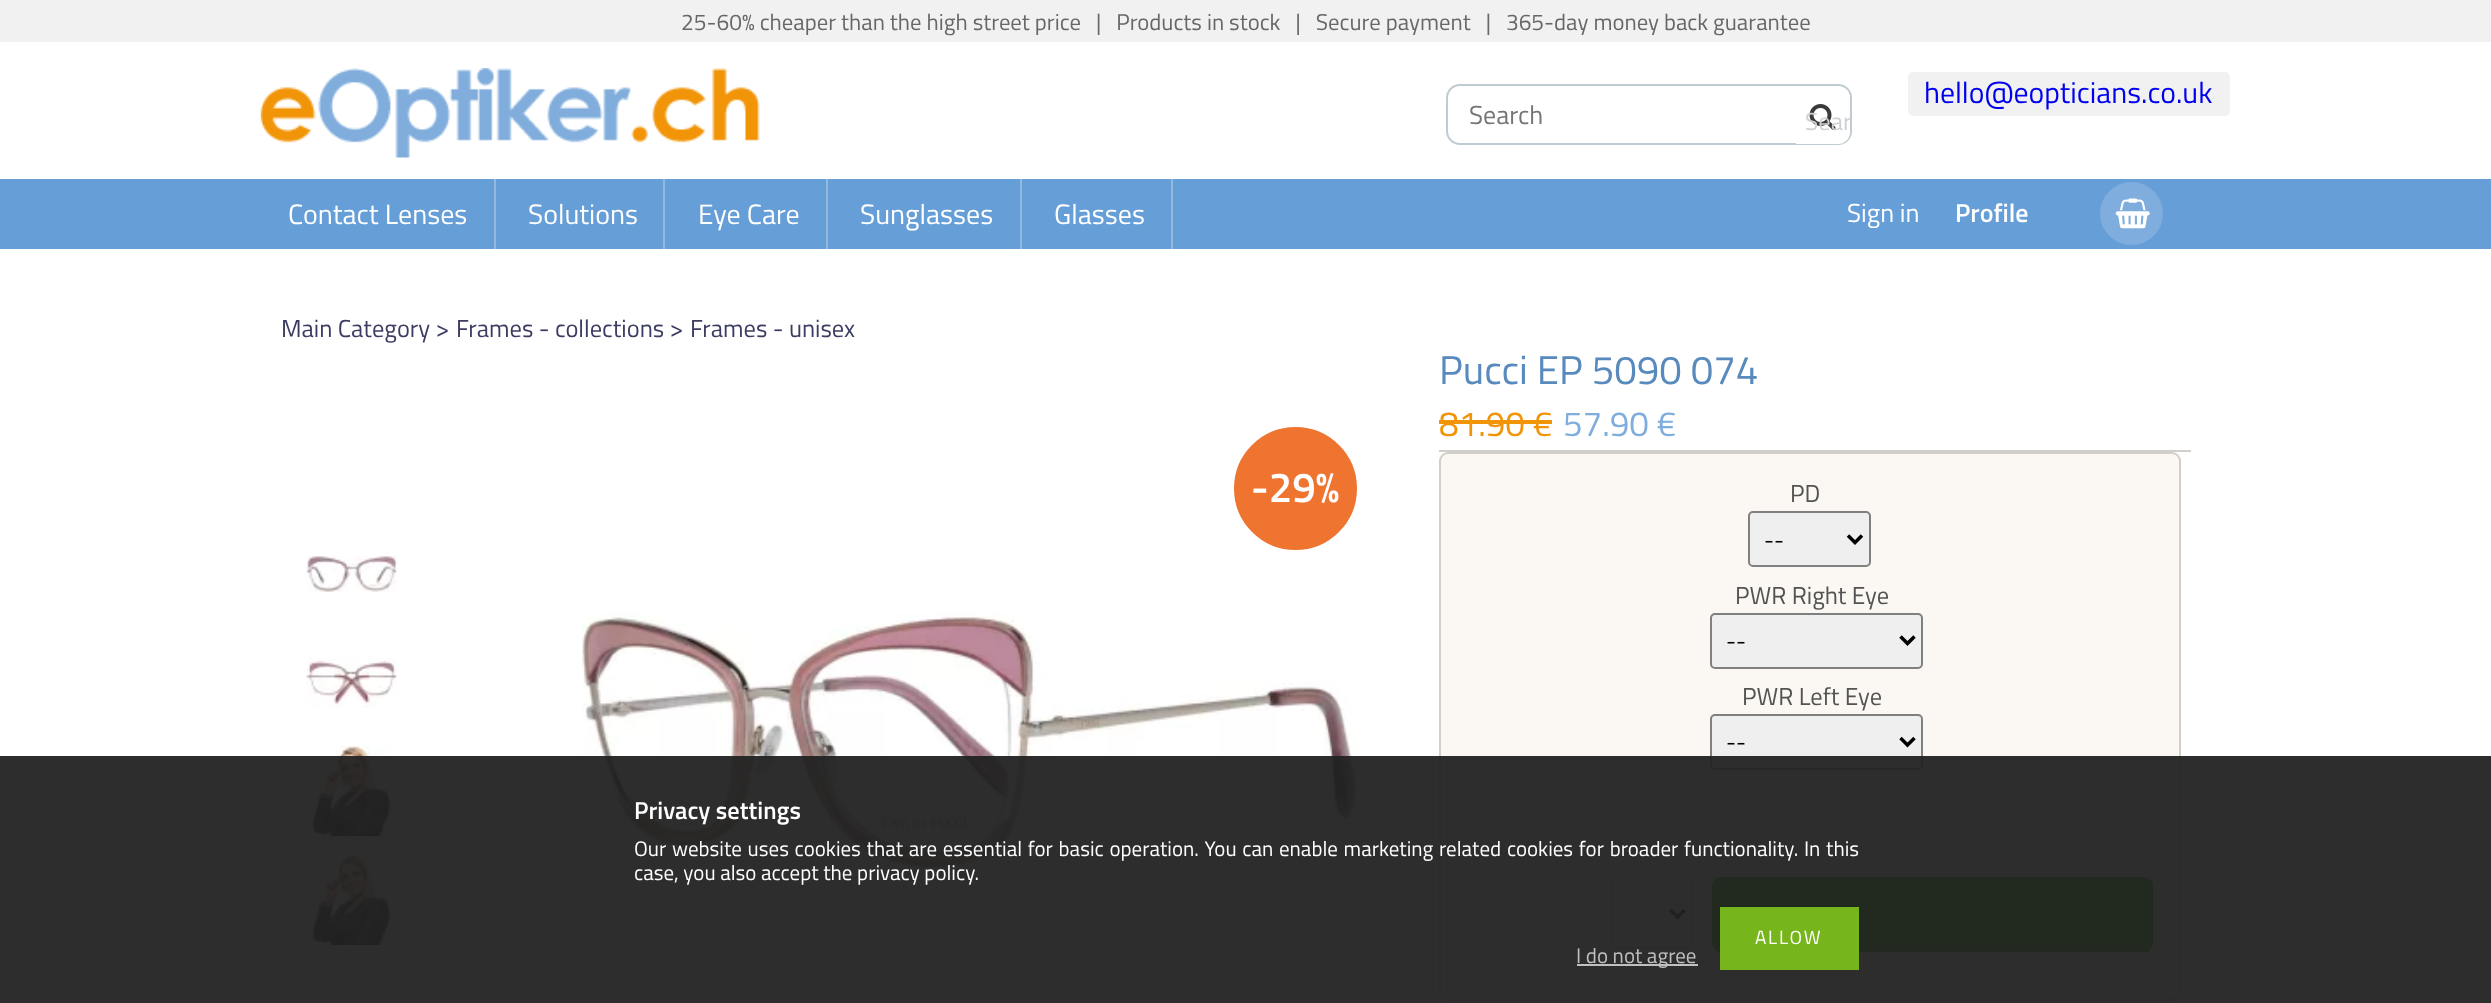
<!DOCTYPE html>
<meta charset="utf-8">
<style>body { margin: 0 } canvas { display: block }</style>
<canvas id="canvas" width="2491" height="1003"></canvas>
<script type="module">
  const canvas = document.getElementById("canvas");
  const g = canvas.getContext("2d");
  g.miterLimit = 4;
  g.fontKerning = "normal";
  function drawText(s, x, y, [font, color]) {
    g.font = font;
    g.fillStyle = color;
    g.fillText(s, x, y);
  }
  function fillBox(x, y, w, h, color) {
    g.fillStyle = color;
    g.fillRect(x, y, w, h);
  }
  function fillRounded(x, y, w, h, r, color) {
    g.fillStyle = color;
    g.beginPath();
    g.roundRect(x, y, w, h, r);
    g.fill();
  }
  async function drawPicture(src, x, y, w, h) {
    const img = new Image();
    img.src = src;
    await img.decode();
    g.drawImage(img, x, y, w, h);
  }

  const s1 = ["22.75px Titillium Web", "#676767"];
  const s2 = ["29.75px Titillium Web", "#0000EE"];
  const s3 = ["26px Titillium Web", "#757575"];
  const s4 = ["24.5px Titillium Web", "#D0D0D0"];
  const s5 = ["28px Titillium Web", "#FFFFFF"];
  const s6 = ["26px Titillium Web", "#FFFFFF"];
  const s7 = ["600 26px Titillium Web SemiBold", "#FFFFFF"];
  const s8 = ["24.5px Titillium Web", "#3C3C62"];
  const s9 = ["600 42px Titillium Web SemiBold", "#FFFFFF"];
  const s10 = ["40.25px Titillium Web", "#588ABD"];
  const s11 = ["35px Titillium Web", "#F19406"];
  const s12 = ["35px Titillium Web", "#7FADDD"];
  const s13 = ["24.5px Titillium Web", "#535353"];
  const s14 = ["22.75px Titillium Web", "#000000"];
  const s15 = ["600 24.5px Titillium Web SemiBold", "#FFFFFF"];
  const s16 = ["21px Titillium Web", "#FFFFFF"];
  const s17 = ["19px Titillium Web", "#FFFFFF"];
  const s18 = ["21px Titillium Web", "#C0C0C0"];

  fillBox(0, 0, 2491, 1003, "#FFFFFF");
  fillBox(0, 0, 2491, 42, "#F1F1F1");
  drawText("25-60% cheaper than the high street price   |   Products in stock   |   Secure payment   |   365-day money back guarantee", 681, 30, s1);
  await drawPicture("pic1.png", 260, 68, 500, 90);
  fillRounded(1908, 72, 322, 44, 5, "#F1F1F1");
  drawText("hello@eopticians.co.uk", 1924, 103, s2);
  g.beginPath();
  g.roundRect(1447, 85, 404, 59, 13);
  g.strokeStyle = "#BFCBD0";
  g.lineWidth = 2;
  g.stroke();
  drawText("Search", 1469, 124, s3);
  g.fillStyle = "#FFFFFF";
  g.beginPath();
  g.roundRect(1796, 86, 54, 58, [0, 12, 12, 0]);
  g.fill();
  await drawPicture("pic2.png", 1809, 104, 27, 26);
  g.save();
  g.beginPath();
  g.roundRect(1796, 95, 54, 52, 7);
  g.clip();
  drawText("Sear", 1805, 130, s4);
  g.restore();
  fillBox(0, 179, 2491, 70, "#669ED8");
  drawText("Contact Lenses", 288, 224, s5);
  fillBox(494, 179, 2, 70, "#94B9E0");
  drawText("Solutions", 528, 224, s5);
  fillBox(663, 179, 2, 70, "#94B9E0");
  drawText("Eye Care", 698, 224, s5);
  fillBox(826, 179, 2, 70, "#94B9E0");
  drawText("Sunglasses", 860, 224, s5);
  fillBox(1020, 179, 2, 70, "#94B9E0");
  drawText("Glasses", 1054, 224, s5);
  fillBox(1171, 179, 2, 70, "#94B9E0");
  drawText("Sign in", 1847, 222, s6);
  drawText("Profile", 1955, 222, s7);
  g.fillStyle = "#7FADDD";
  g.beginPath();
  g.arc(2131.5, 213.5, 30.5, 0, Math.PI * 2);
  g.fill();
  g.strokeStyle = "#7FADDD";
  g.stroke();
  await drawPicture("pic3.png", 2115, 198, 35, 31);
  drawText("Main Category >", 281, 337, s8);
  drawText("Frames - collections >", 456, 337, s8);
  drawText("Frames - unisex", 690, 337, s8);
  g.fillStyle = "#EF7430";
  g.beginPath();
  g.arc(1295.5, 488.5, 64, 0, Math.PI * 2);
  g.fill();
  g.strokeStyle = "#FFFFFF";
  g.lineWidth = 5;
  g.stroke();
  drawText("-29%", 1251, 502, s9);
  await drawPicture("pic4.png", 306, 556, 91, 36);
  await drawPicture("pic5.png", 306, 658, 91, 50);
  await drawPicture("pic6.png", 311, 745, 80, 92);
  await drawPicture("pic7.png", 311, 854, 80, 91);
  await drawPicture("pic8.png", 582, 613, 778, 259);
  drawText("Pucci EP 5090 074", 1439, 384, s10);
  fillBox(1439, 450, 752, 2, "#D2CECA");
  drawText("81.90 €", 1439, 436, s11);
  fillBox(1439, 420, 113, 4, "#F19406");
  drawText("57.90 €", 1563, 436, s12);
  g.fillStyle = "#FBF7F2";
  g.beginPath();
  g.roundRect(1440, 453, 740, 547, 8);
  g.fill();
  g.strokeStyle = "#D2CFCA";
  g.lineWidth = 2;
  g.stroke();
  drawText("PD", 1790, 502, s13);
  g.fillStyle = "#EFEFEF";
  g.beginPath();
  g.roundRect(1749, 512, 121, 54, 4);
  g.fill();
  g.strokeStyle = "#808080";
  g.stroke();
  g.beginPath();
  g.moveTo(1848, 535.5);
  g.lineTo(1855, 542.5);
  g.lineTo(1862, 535.5);
  g.strokeStyle = "#000000";
  g.lineWidth = 3.5;
  g.stroke();
  drawText("--", 1764, 548, s14);
  drawText("PWR Right Eye", 1735, 604, s13);
  g.fillStyle = "#EFEFEF";
  g.beginPath();
  g.roundRect(1711, 614, 211, 54, 4);
  g.fill();
  g.strokeStyle = "#808080";
  g.lineWidth = 2;
  g.stroke();
  g.beginPath();
  g.moveTo(1900.5, 636.5);
  g.lineTo(1907.5, 643.5);
  g.lineTo(1914.5, 636.5);
  g.strokeStyle = "#000000";
  g.lineWidth = 3.5;
  g.stroke();
  drawText("--", 1726, 649, s14);
  drawText("PWR Left Eye", 1742, 705, s13);
  g.fillStyle = "#EFEFEF";
  g.beginPath();
  g.roundRect(1711, 715, 211, 54, 4);
  g.fill();
  g.strokeStyle = "#808080";
  g.lineWidth = 2;
  g.stroke();
  g.beginPath();
  g.moveTo(1900.5, 738);
  g.lineTo(1907.5, 745);
  g.lineTo(1914.5, 738);
  g.strokeStyle = "#000000";
  g.lineWidth = 3.5;
  g.stroke();
  drawText("--", 1726, 750, s14);
  g.fillStyle = "#FFFFFF";
  g.beginPath();
  g.rect(1611, 880, 82, 68);
  g.fill();
  g.strokeStyle = "#D2CECA";
  g.lineWidth = 2;
  g.stroke();
  g.beginPath();
  g.moveTo(1670.5, 910);
  g.lineTo(1677.5, 917);
  g.lineTo(1684.5, 910);
  g.strokeStyle = "#000000";
  g.lineWidth = 3.5;
  g.stroke();
  fillRounded(1712, 877, 441, 75, 9, "#30C800");
  fillBox(1717, 950, 432, 2, "#259800");
  fillBox(0, 756, 2491, 247, "rgba(34, 34, 34, 0.95)");
  drawText("Privacy settings", 634, 819, s15);
  g.wordSpacing = "1.1px";
  drawText("Our website uses cookies that are essential for basic operation. You can enable marketing related cookies for broader functionality. In this", 634, 856, s16);
  g.wordSpacing = "0px";
  drawText("case, you also accept the privacy policy.", 634, 880, s16);
  fillBox(1720, 907, 139, 63, "#76B51B");
  g.letterSpacing = "1.75px";
  drawText("ALLOW", 1755, 944, s17);
  fillBox(1577, 964, 121, 2, "#C0C0C0");
  g.letterSpacing = "0px";
  drawText("I do not agree", 1576, 963, s18);
</script>
